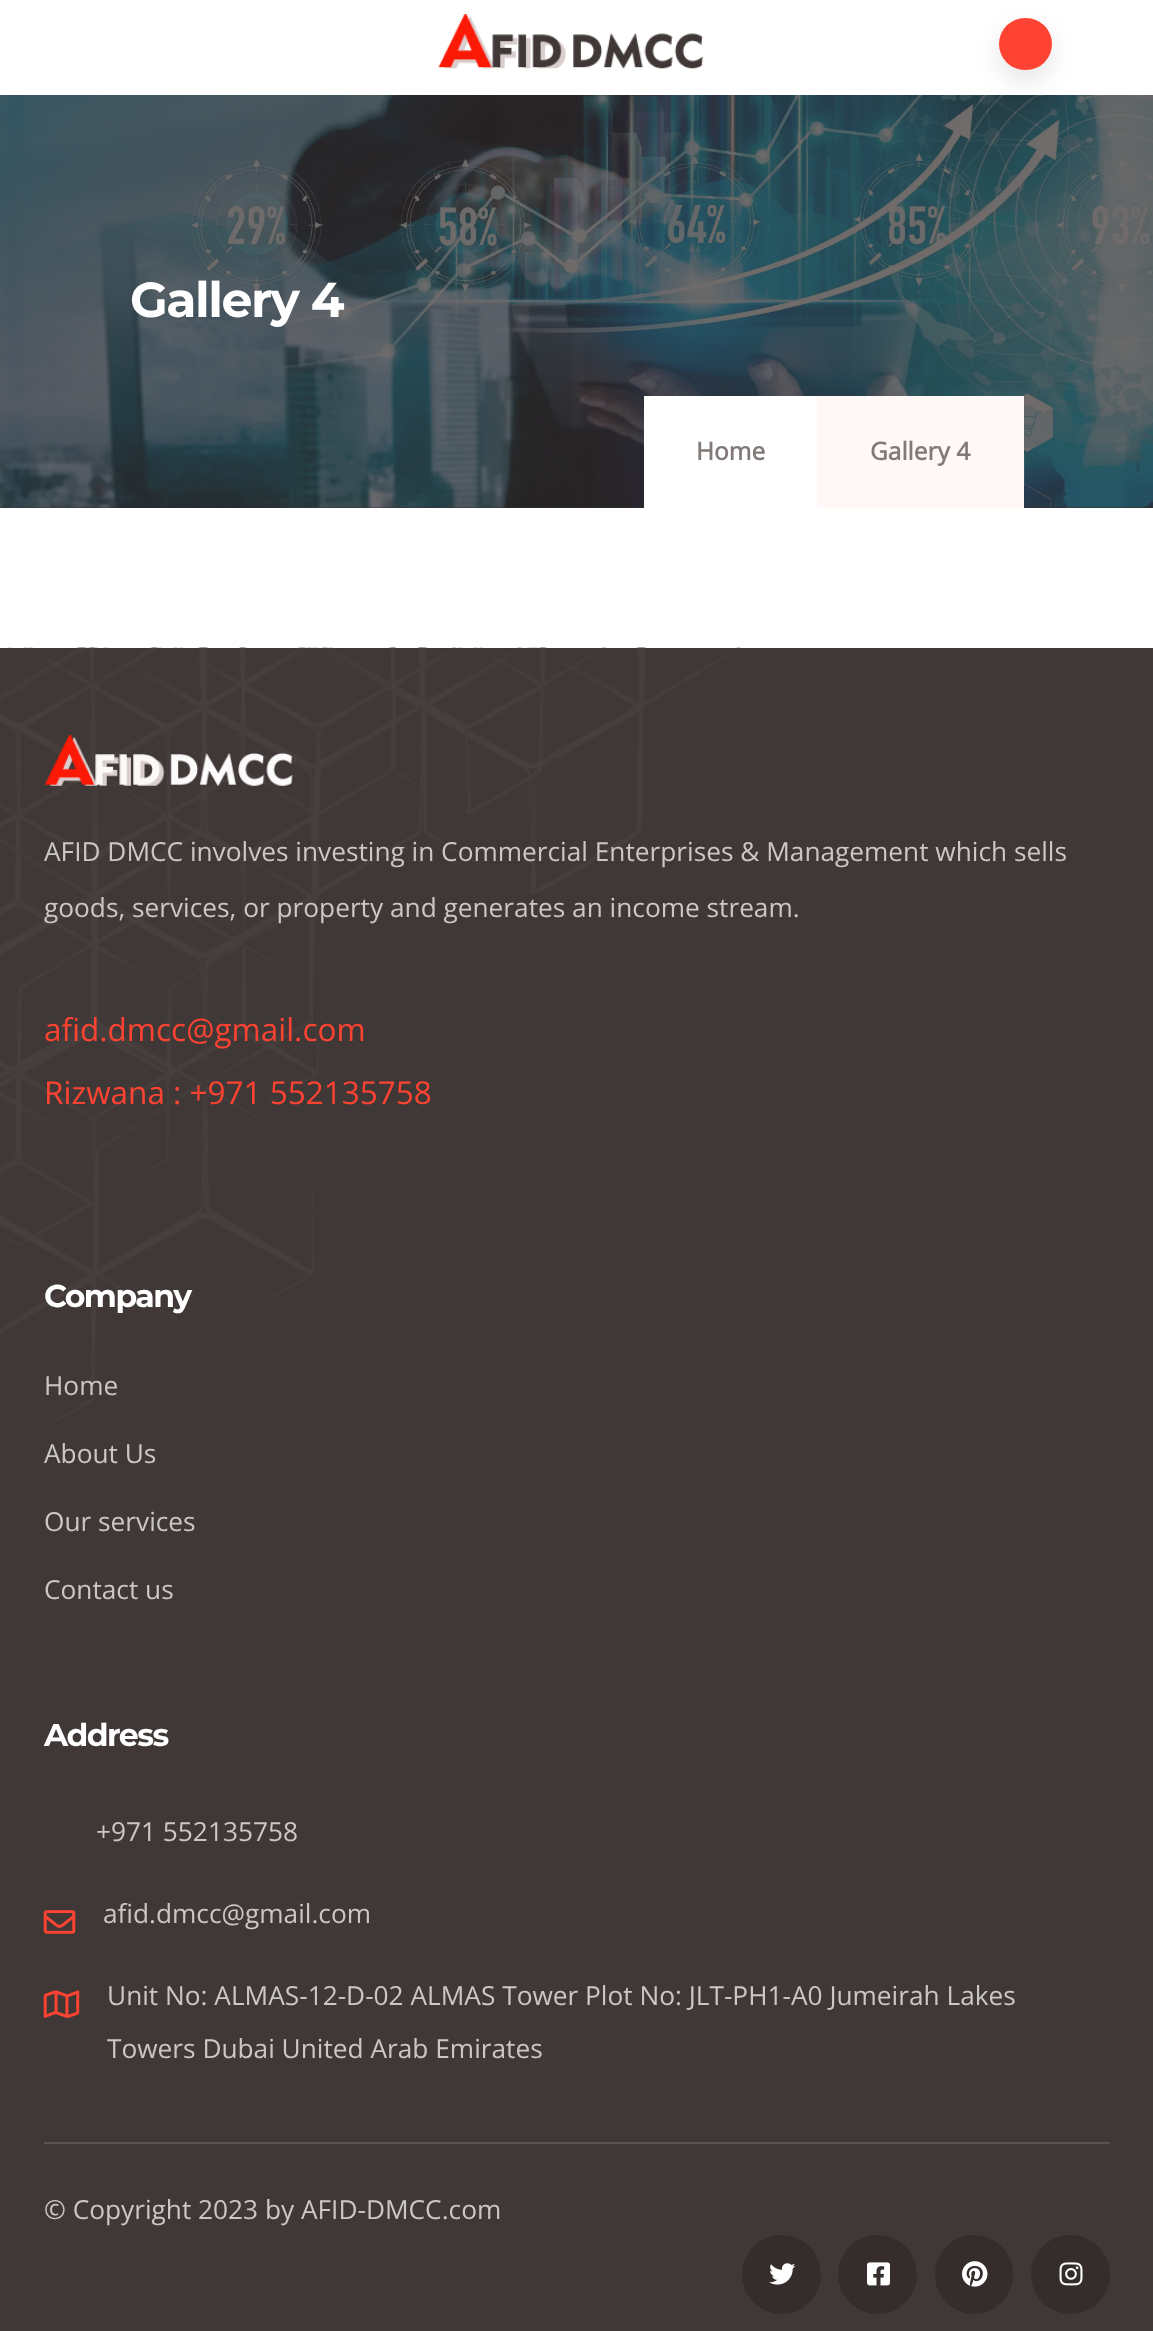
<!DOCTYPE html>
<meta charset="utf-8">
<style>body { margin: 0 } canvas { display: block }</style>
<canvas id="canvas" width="1153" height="2331"></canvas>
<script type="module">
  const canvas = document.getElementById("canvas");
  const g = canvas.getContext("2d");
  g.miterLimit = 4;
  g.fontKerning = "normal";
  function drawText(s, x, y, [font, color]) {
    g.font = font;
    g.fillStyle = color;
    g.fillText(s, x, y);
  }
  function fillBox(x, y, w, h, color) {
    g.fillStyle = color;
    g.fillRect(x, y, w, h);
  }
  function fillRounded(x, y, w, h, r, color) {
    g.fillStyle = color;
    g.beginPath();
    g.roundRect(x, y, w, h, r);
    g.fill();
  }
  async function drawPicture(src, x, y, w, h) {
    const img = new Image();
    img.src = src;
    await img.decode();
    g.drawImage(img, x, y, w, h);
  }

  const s1 = ["bold 49px Montserrat", "#FFFFFF"];
  const s2 = ["bold 24.5px Open Sans", "#817A78"];
  const s3 = ["26.25px Open Sans", "#CBC7C5"];
  const s4 = ["31.5px Open Sans", "#FF4332"];
  const s5 = ["bold 31.5px Montserrat", "#FFFFFF"];

  fillBox(0, 0, 1153, 2331, "#FFFFFF");
  await drawPicture("pic1.png", 438, 14, 266, 55);
  fillBox(0, 507, 1153, 1, "#37302F");
  await drawPicture("pic2.png", 0, 95, 1153, 413);
  g.fillStyle = "rgba(0, 0, 0, 0.1)";
  g.filter = "blur(12px)";
  g.beginPath();
  g.roundRect(999, 28, 53, 53, 26.5);
  g.fill();
  g.filter = "none";
  fillRounded(999, 18, 53, 52, 26, "#FF4332");
  g.letterSpacing = "-1.5px";
  drawText("Gallery 4", 130, 317, s1);
  fillBox(644, 396, 173, 112, "#FFFFFF");
  g.letterSpacing = "0px";
  drawText("Home", 696, 460, s2);
  fillBox(817, 396, 207, 112, "#FFF8F7");
  drawText("Gallery 4", 870, 460, s2);
  fillBox(0, 648, 1153, 1683, "#3F3836");
  await drawPicture("pic3.png", 0, 647, 741, 793);
  await drawPicture("pic4.png", 44, 735, 249, 51);
  drawText("AFID DMCC involves investing in Commercial Enterprises & Management which sells", 44, 861, s3);
  drawText("goods, services, or property and generates an income stream.", 44, 917, s3);
  drawText("afid.dmcc@gmail.com", 44, 1041, s4);
  drawText("Rizwana : +971 552135758", 44, 1104, s4);
  g.letterSpacing = "-1.5px";
  drawText("Company", 44, 1307, s5);
  g.letterSpacing = "0px";
  drawText("Home", 44, 1395, s3);
  drawText("About Us", 44, 1463, s3);
  drawText("Our services", 44, 1531, s3);
  drawText("Contact us", 44, 1599, s3);
  g.letterSpacing = "-1.5px";
  drawText("Address", 44, 1746, s5);
  g.letterSpacing = "0px";
  drawText("+971 552135758", 96, 1841, s3);
  await drawPicture("pic5.png", 43, 1910, 33, 24);
  drawText("afid.dmcc@gmail.com", 103, 1923, s3);
  await drawPicture("pic6.png", 43, 1990, 37, 28);
  drawText("Unit No: ALMAS-12-D-02 ALMAS Tower Plot No: JLT-PH1-A0 Jumeirah Lakes", 107, 2005, s3);
  drawText("Towers Dubai United Arab Emirates", 107, 2058, s3);
  fillBox(44, 2142, 1066, 2, "#585250");
  drawText("© Copyright 2023 by AFID-DMCC.com", 44, 2219, s3);
  g.fillStyle = "#342D2C";
  g.beginPath();
  g.arc(781.5, 2274.5, 39.5, 0, Math.PI * 2);
  g.fill();
  await drawPicture("pic7.png", 769, 2263, 27, 22);
  g.beginPath();
  g.arc(877.5, 2274.5, 39.5, 0, Math.PI * 2);
  g.fill();
  await drawPicture("pic8.png", 867, 2262, 23, 24);
  fillRounded(935, 2235, 78, 79, 39, "#342D2C");
  await drawPicture("pic9.png", 962, 2261, 26, 26);
  g.beginPath();
  g.arc(1070.5, 2274.5, 39.5, 0, Math.PI * 2);
  g.fill();
  await drawPicture("pic10.png", 1059, 2262, 24, 24);
</script>
